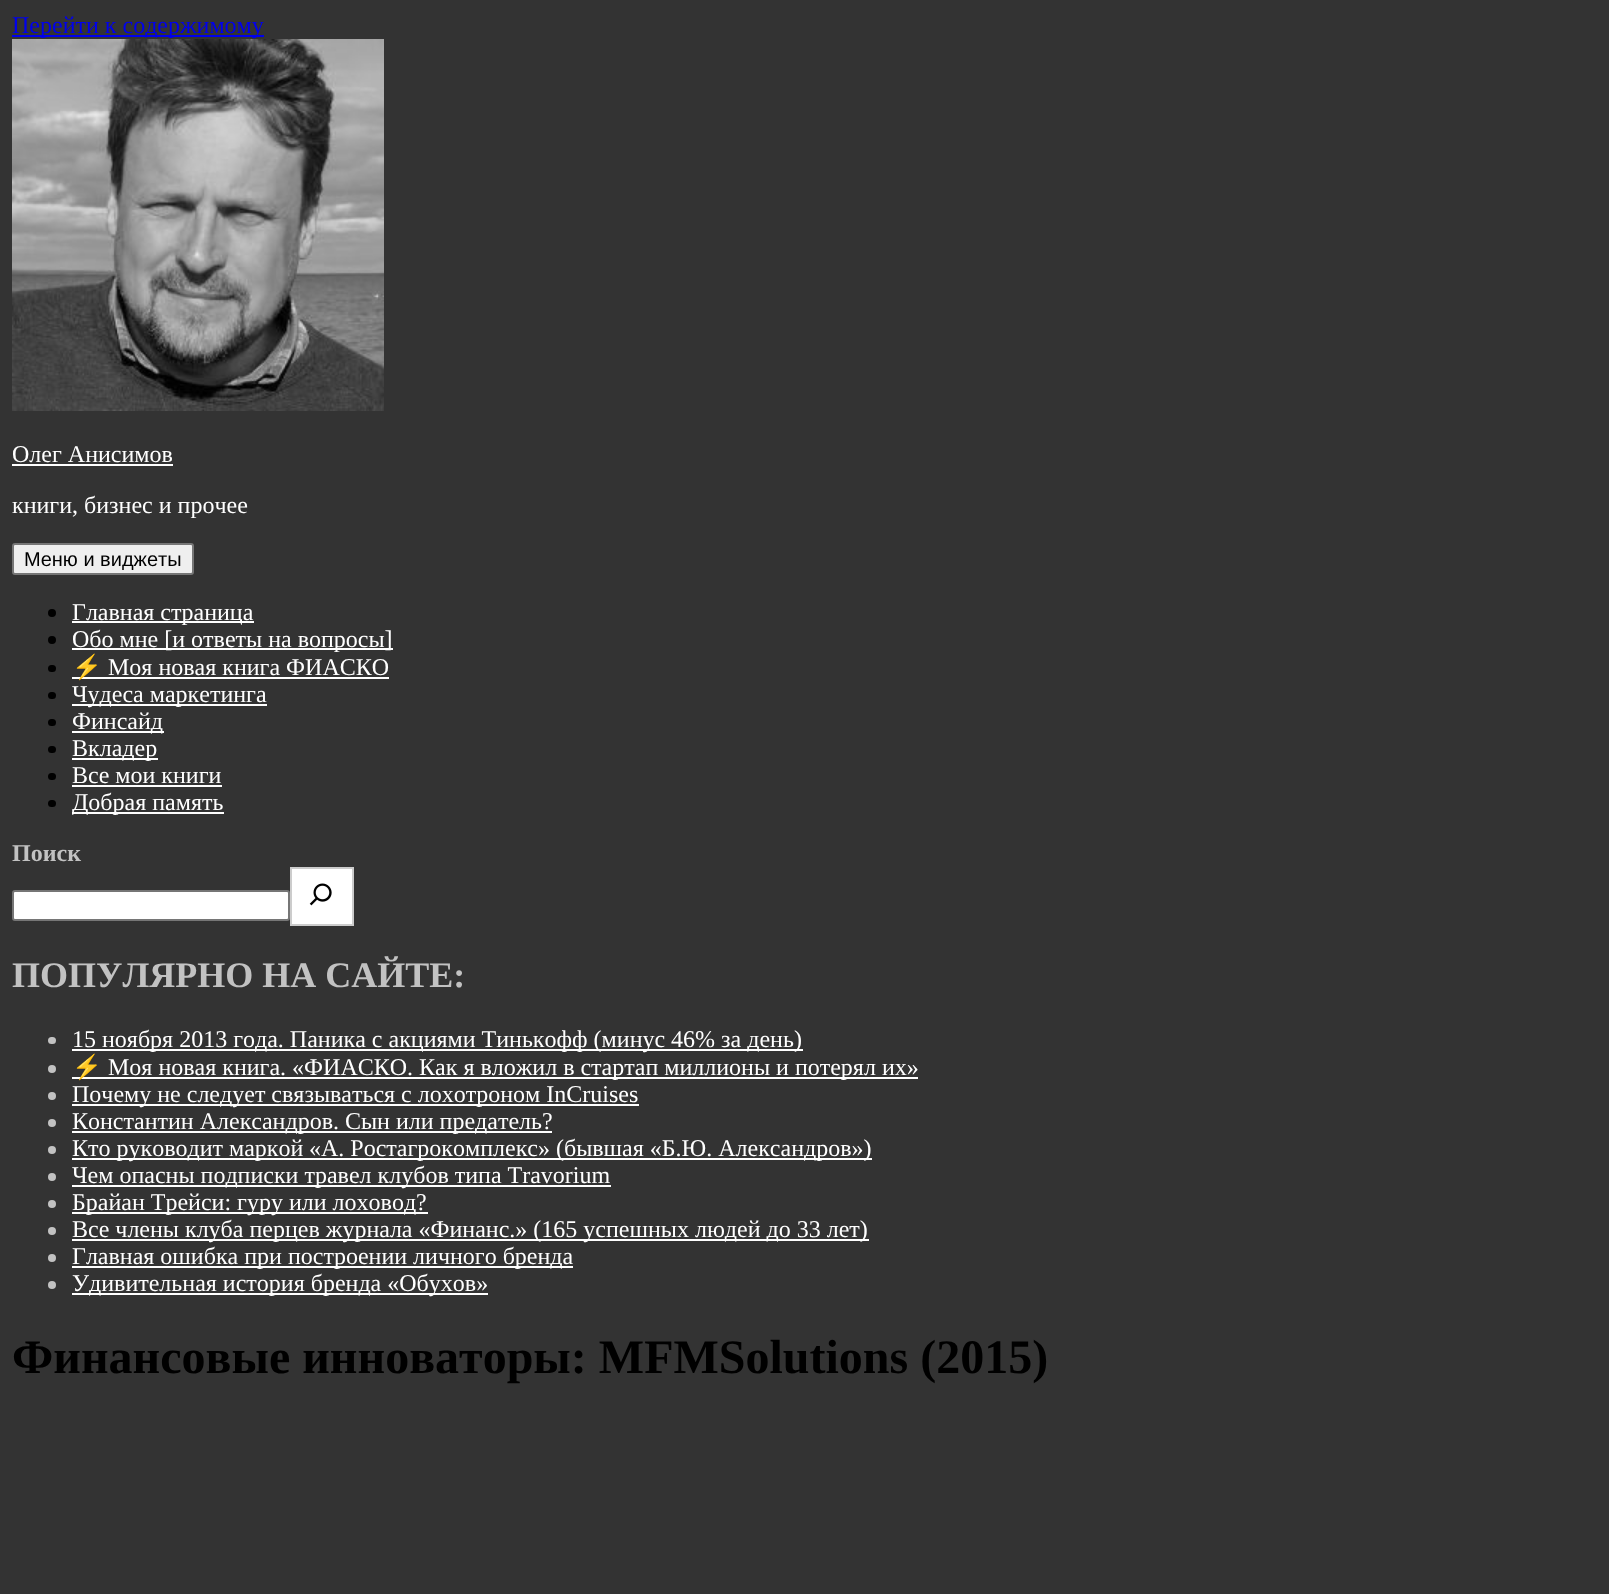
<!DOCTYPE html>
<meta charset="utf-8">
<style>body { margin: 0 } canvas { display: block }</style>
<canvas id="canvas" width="1609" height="1594"></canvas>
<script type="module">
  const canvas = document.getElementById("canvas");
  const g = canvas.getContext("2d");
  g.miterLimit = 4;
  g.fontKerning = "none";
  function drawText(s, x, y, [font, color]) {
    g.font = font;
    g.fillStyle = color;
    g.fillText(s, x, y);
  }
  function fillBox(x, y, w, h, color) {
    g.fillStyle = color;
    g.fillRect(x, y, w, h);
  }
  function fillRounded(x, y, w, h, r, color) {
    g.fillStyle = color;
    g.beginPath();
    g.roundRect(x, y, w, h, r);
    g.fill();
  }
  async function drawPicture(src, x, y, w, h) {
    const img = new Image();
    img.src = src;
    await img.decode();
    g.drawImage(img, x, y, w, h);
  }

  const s1 = ["24px Liberation Serif", "#0000EE"];
  const s2 = ["24px Liberation Serif", "#FFFFFF"];
  const s3 = ["20px Liberation Sans", "#000000"];
  const s4 = ["24px Noto Color Emoji", "#FFFFFF"];
  const s5 = ["bold 24px Liberation Serif", "#C2C2C2"];
  const s6 = ["bold 36px Liberation Serif", "#C2C2C2"];
  const s7 = ["bold 48px Liberation Serif", "#000000"];

  fillBox(0, 0, 1609, 1594, "#333333");
  fillBox(12, 35, 252, 2, "#0000EE");
  drawText("Перейти к содержимому", 12, 33, s1);
  await drawPicture("pic1.png", 12, 39, 372, 372);
  drawText("Олег Анисимов", 12, 462, s2);
  fillBox(12, 464, 161, 2, "#FFFFFF");
  drawText("книги, бизнес и прочее", 12, 513, s2);
  g.fillStyle = "#EFEFEF";
  g.beginPath();
  g.roundRect(13, 544, 180, 30, 2);
  g.fill();
  g.strokeStyle = "#767676";
  g.lineWidth = 2;
  g.stroke();
  drawText("Меню и виджеты", 24, 566, s3);
  g.beginPath();
  g.arc(52, 613, 4, 0, Math.PI * 2);
  g.fill();
  fillBox(72, 621, 182, 2, "#FFFFFF");
  drawText("Главная страница", 72, 620, s2);
  g.fillStyle = "#000000";
  g.beginPath();
  g.arc(52, 640, 4, 0, Math.PI * 2);
  g.fill();
  fillBox(72, 648, 321, 2, "#FFFFFF");
  drawText("Обо мне [и ответы на вопросы]", 72, 647, s2);
  fillRounded(48, 665, 8, 7, 3.5, "#000000");
  fillBox(72, 677, 317, 2, "#FFFFFF");
  drawText("⚡", 72, 675, s4);
  drawText("Моя новая книга ФИАСКО", 108, 675, s2);
  fillRounded(48, 692, 8, 7, 3.5, "#000000");
  fillBox(72, 704, 195, 2, "#FFFFFF");
  drawText("Чудеса маркетинга", 72, 702, s2);
  fillRounded(48, 719, 8, 7, 3.5, "#000000");
  fillBox(72, 731, 92, 2, "#FFFFFF");
  drawText("Финсайд", 72, 729, s2);
  fillRounded(48, 746, 8, 7, 3.5, "#000000");
  fillBox(72, 758, 86, 2, "#FFFFFF");
  drawText("Вкладер", 72, 756, s2);
  fillRounded(48, 773, 8, 7, 3.5, "#000000");
  drawText("Все мои книги", 72, 783, s2);
  fillBox(72, 785, 150, 2, "#FFFFFF");
  fillRounded(48, 800, 8, 7, 3.5, "#000000");
  fillBox(72, 812, 152, 2, "#FFFFFF");
  drawText("Добрая память", 72, 810, s2);
  drawText("Поиск", 12, 861, s5);
  g.fillStyle = "#FFFFFF";
  g.beginPath();
  g.roundRect(13, 891, 276, 29, 2);
  g.fill();
  g.stroke();
  g.beginPath();
  g.rect(291, 868, 62, 57);
  g.fill();
  g.strokeStyle = "#CCCCCC";
  g.stroke();
  await drawPicture("pic2.png", 309, 883, 23, 23);
  drawText("ПОПУЛЯРНО НА САЙТЕ:", 12, 987, s6);
  fillRounded(48, 1037, 8, 7, 3.5, "#C2C2C2");
  fillBox(72, 1049, 731, 2, "#FFFFFF");
  drawText("15 ноября 2013 года. Паника с акциями Тинькофф (минус 46% за день)", 72, 1047, s2);
  g.fillStyle = "#C2C2C2";
  g.beginPath();
  g.arc(52, 1069, 4, 0, Math.PI * 2);
  g.fill();
  fillBox(72, 1077, 846, 2, "#FFFFFF");
  drawText("⚡", 72, 1075, s4);
  drawText("Моя новая книга. «ФИАСКО. Как я вложил в стартап миллионы и потерял", 108, 1075, s2);
  drawText("их»", 882, 1075, s2);
  g.fillStyle = "#C2C2C2";
  g.beginPath();
  g.arc(52, 1096, 4, 0, Math.PI * 2);
  g.fill();
  fillBox(72, 1104, 567, 2, "#FFFFFF");
  drawText("Почему не следует связываться с лохотроном InCruises", 72, 1102, s2);
  g.fillStyle = "#C2C2C2";
  g.beginPath();
  g.arc(52, 1123, 4, 0, Math.PI * 2);
  g.fill();
  fillBox(72, 1131, 480, 2, "#FFFFFF");
  drawText("Константин Александров. Сын или предатель?", 72, 1129, s2);
  g.fillStyle = "#C2C2C2";
  g.beginPath();
  g.arc(52, 1150, 4, 0, Math.PI * 2);
  g.fill();
  fillBox(72, 1158, 800, 2, "#FFFFFF");
  drawText("Кто руководит маркой", 72, 1156, s2);
  drawText("«А. Ростагрокомплекс» (бывшая «Б.Ю. Александров»)", 309, 1156, s2);
  g.fillStyle = "#C2C2C2";
  g.beginPath();
  g.arc(52, 1177, 4, 0, Math.PI * 2);
  g.fill();
  fillBox(72, 1185, 539, 2, "#FFFFFF");
  drawText("Чем опасны подписки травел клубов типа Travorium", 72, 1183, s2);
  g.fillStyle = "#C2C2C2";
  g.beginPath();
  g.arc(52, 1204, 4, 0, Math.PI * 2);
  g.fill();
  fillBox(72, 1212, 356, 2, "#FFFFFF");
  drawText("Брайан Трейси: гуру или лоховод?", 72, 1210, s2);
  g.fillStyle = "#C2C2C2";
  g.beginPath();
  g.arc(52, 1231, 4, 0, Math.PI * 2);
  g.fill();
  fillBox(72, 1239, 797, 2, "#FFFFFF");
  drawText("Все члены клуба перцев журнала «Финанс.» (165 успешных людей до 33 лет)", 72, 1237, s2);
  g.fillStyle = "#C2C2C2";
  g.beginPath();
  g.arc(52, 1258, 4, 0, Math.PI * 2);
  g.fill();
  fillBox(72, 1266, 501, 2, "#FFFFFF");
  drawText("Главная ошибка при построении личного бренда", 72, 1264, s2);
  g.fillStyle = "#C2C2C2";
  g.beginPath();
  g.arc(52, 1285, 4, 0, Math.PI * 2);
  g.fill();
  fillBox(72, 1293, 416, 2, "#FFFFFF");
  drawText("Удивительная история бренда «Обухов»", 72, 1291, s2);
  drawText("Финансовые инноваторы: MFMSolutions (2015)", 12, 1373, s7);
</script>
